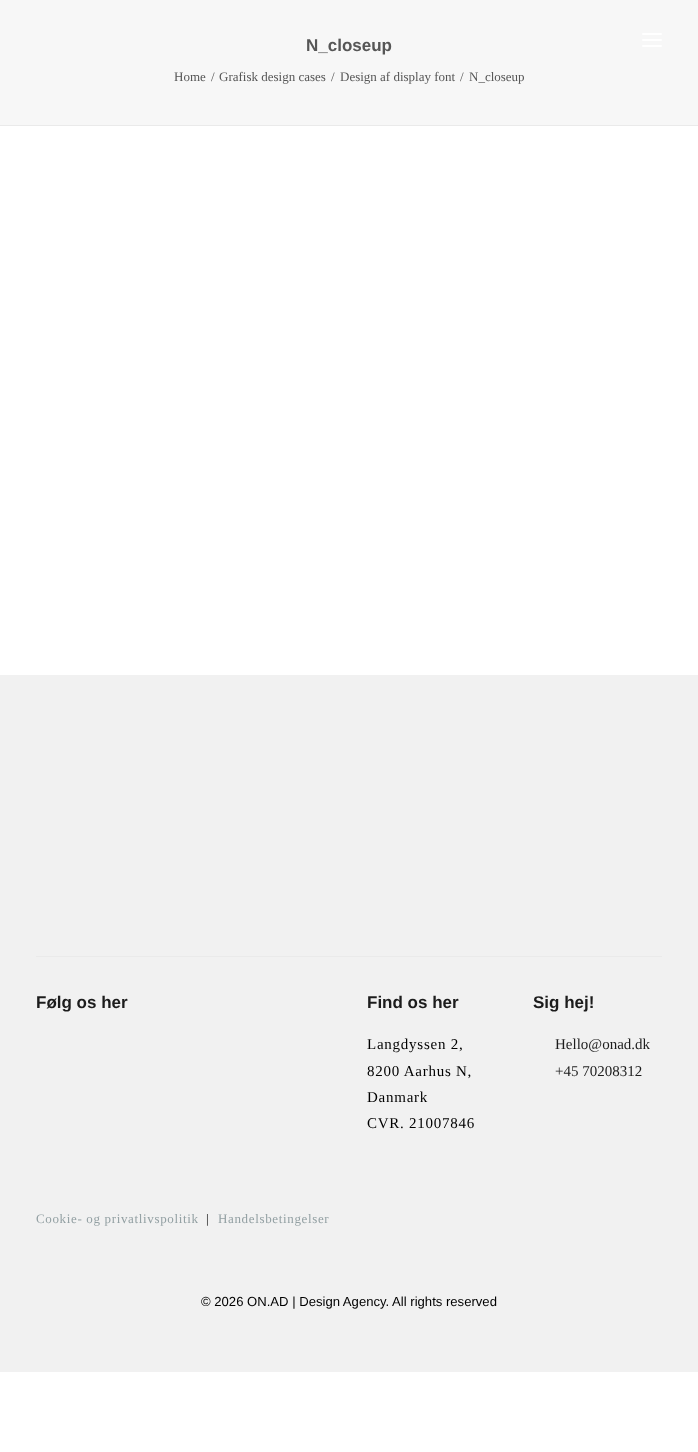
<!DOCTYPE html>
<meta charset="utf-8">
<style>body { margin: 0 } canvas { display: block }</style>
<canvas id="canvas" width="698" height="1452"></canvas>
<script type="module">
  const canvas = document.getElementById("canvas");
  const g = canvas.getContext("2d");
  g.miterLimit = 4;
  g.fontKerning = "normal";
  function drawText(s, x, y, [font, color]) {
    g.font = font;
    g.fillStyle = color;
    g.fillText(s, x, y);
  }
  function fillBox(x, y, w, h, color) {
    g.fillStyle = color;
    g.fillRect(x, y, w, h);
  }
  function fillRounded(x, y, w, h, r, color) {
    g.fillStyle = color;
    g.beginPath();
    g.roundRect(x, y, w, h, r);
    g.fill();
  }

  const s1 = ["bold 17px Liberation Sans", "#565656"];
  const s2 = ["13px Liberation Serif", "#565656"];
  const s3 = ["bold 17px Liberation Sans", "#1C1C1C"];
  const s4 = ["15px Liberation Serif", "#000000"];
  const s5 = ["15px Liberation Serif", "#1C1C1C"];
  const s6 = ["13px Liberation Serif", "#93A0A3"];
  const s7 = ["13px Liberation Serif", "#000000"];
  const s8 = ["13.1px Liberation Sans", "#000000"];

  fillBox(0, 0, 698, 1452, "#FFFFFF");
  fillBox(0, 0, 698, 125, "#F7F7F7");
  fillBox(0, 125, 698, 1, "#EAEAEA");
  drawText("N_closeup", 306, 51, s1);
  drawText("Home", 174, 81, s2);
  drawText("/", 211, 81, s2);
  drawText("Grafisk design cases", 219, 81, s2);
  drawText("/", 331, 81, s2);
  drawText("Design af display font", 340, 81, s2);
  drawText("/", 460, 81, s2);
  drawText("N_closeup", 469, 81, s2);
  fillBox(0, 675, 698, 697, "#F1F1F1");
  fillBox(36, 956, 626, 1, "#EAEAEA");
  drawText("Følg os her", 36, 1008, s3);
  drawText("Find os her", 367, 1008, s3);
  g.letterSpacing = "0.75px";
  drawText("Langdyssen 2,", 367, 1049, s4);
  drawText("8200 Aarhus N,", 367, 1076, s4);
  drawText("Danmark", 367, 1102, s4);
  drawText("CVR. 21007846", 367, 1128, s4);
  g.letterSpacing = "0px";
  drawText("Sig hej!", 533, 1008, s3);
  drawText("Hello@onad.dk", 555, 1049, s5);
  drawText("+45 70208312", 555, 1076, s5);
  g.letterSpacing = "0.65px";
  drawText("Cookie- og privatlivspolitik", 36, 1223, s6);
  drawText("|", 206, 1223, s7);
  drawText("Handelsbetingelser", 218, 1223, s6);
  g.letterSpacing = "0px";
  drawText("© 2026 ON.AD | Design Agency. All rights reserved", 201, 1306, s8);
  fillRounded(642, 39, 20, 2, 1, "#FFFFFF");
  fillRounded(642, 33, 20, 2, 1, "#FFFFFF");
  fillRounded(642, 45, 20, 2, 1, "#FFFFFF");
</script>
